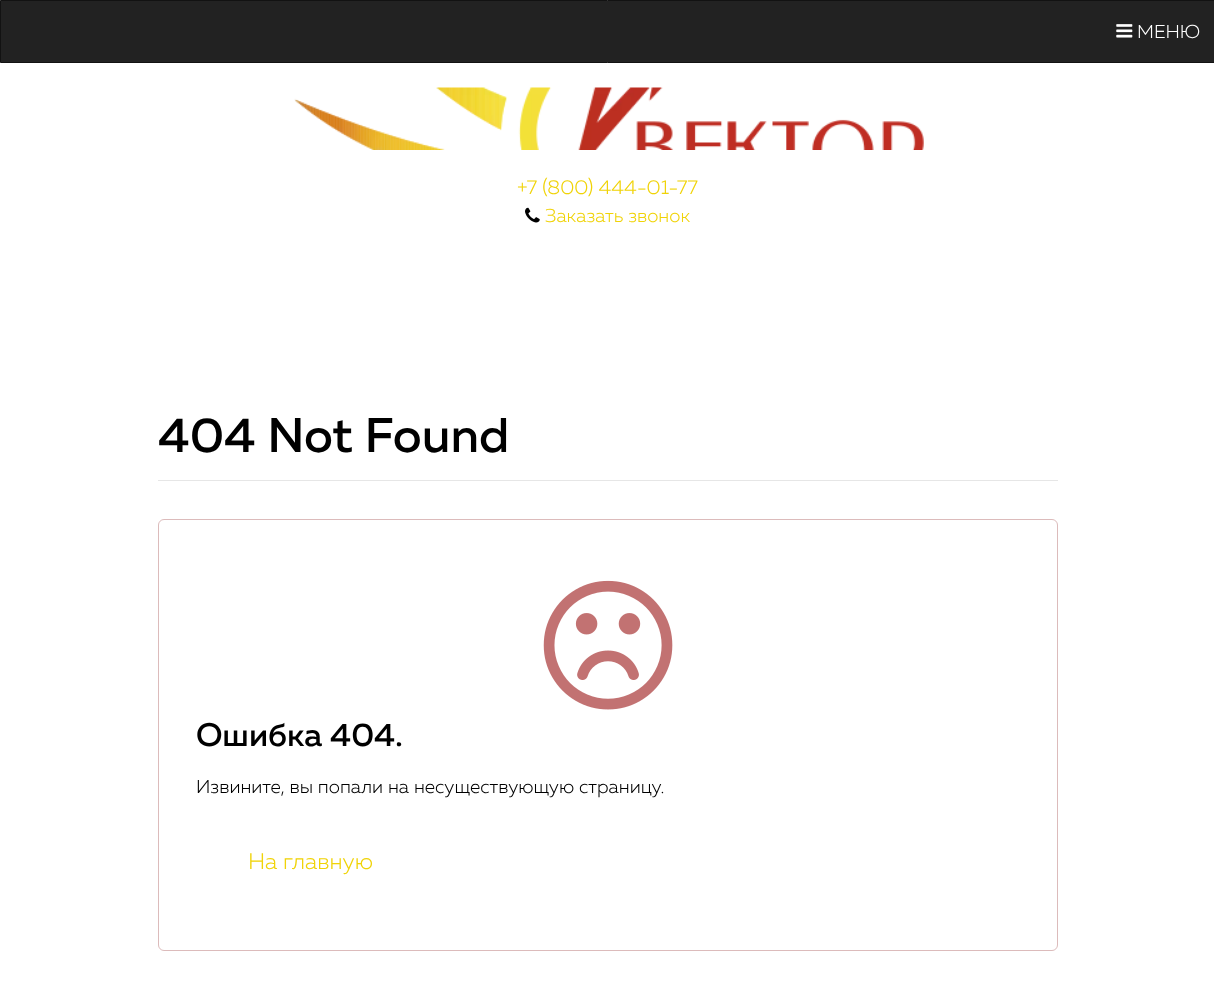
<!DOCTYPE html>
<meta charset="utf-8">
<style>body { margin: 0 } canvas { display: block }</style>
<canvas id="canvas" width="1214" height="1003"></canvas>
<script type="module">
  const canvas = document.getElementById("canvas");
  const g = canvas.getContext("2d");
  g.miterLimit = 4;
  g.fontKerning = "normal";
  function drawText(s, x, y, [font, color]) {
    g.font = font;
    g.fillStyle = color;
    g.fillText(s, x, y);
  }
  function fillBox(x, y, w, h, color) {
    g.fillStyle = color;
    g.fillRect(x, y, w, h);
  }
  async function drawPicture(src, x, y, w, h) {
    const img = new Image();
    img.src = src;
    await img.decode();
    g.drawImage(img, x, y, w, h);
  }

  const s1 = ["300 18.75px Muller", "#FFFFFF"];
  const s2 = ["300 20px Muller", "#F0D307"];
  const s3 = ["300 18.75px Muller", "#F0D307"];
  const s4 = ["500 48.75px Muller", "#000000"];
  const s5 = ["500 32.5px Muller", "#000000"];
  const s6 = ["300 18.75px Muller", "#000000"];
  const s7 = ["300 22.5px Muller", "#F0D307"];

  fillBox(0, 0, 1214, 1003, "#FFFFFF");
  g.fillStyle = "#222222";
  g.beginPath();
  g.rect(0.5, 0.5, 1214, 62);
  g.fill();
  g.strokeStyle = "#121212";
  g.stroke();
  await drawPicture("pic1.png", 1116, 24, 17, 14);
  drawText("МЕНЮ", 1137, 38, s1);
  await drawPicture("pic2.png", 294, 87, 630, 63);
  drawText("+7 (800) 444-01-77", 517, 194, s2);
  await drawPicture("pic3.png", 525, 207, 15, 16);
  drawText("Заказать звонок", 545, 222, s3);
  fillBox(158, 480, 900, 1, "#E6E6E6");
  drawText("404 Not Found", 158, 452, s4);
  g.beginPath();
  g.roundRect(158.5, 519.5, 899, 431, 5.5);
  g.strokeStyle = "#DCBBBB";
  g.stroke();
  await drawPicture("pic4.png", 543, 580, 130, 130);
  drawText("Ошибка 404.", 196, 746, s5);
  drawText("Извините, вы попали на несуществующую страницу.", 196, 793, s6);
  drawText("На главную", 248, 869, s7);
</script>
